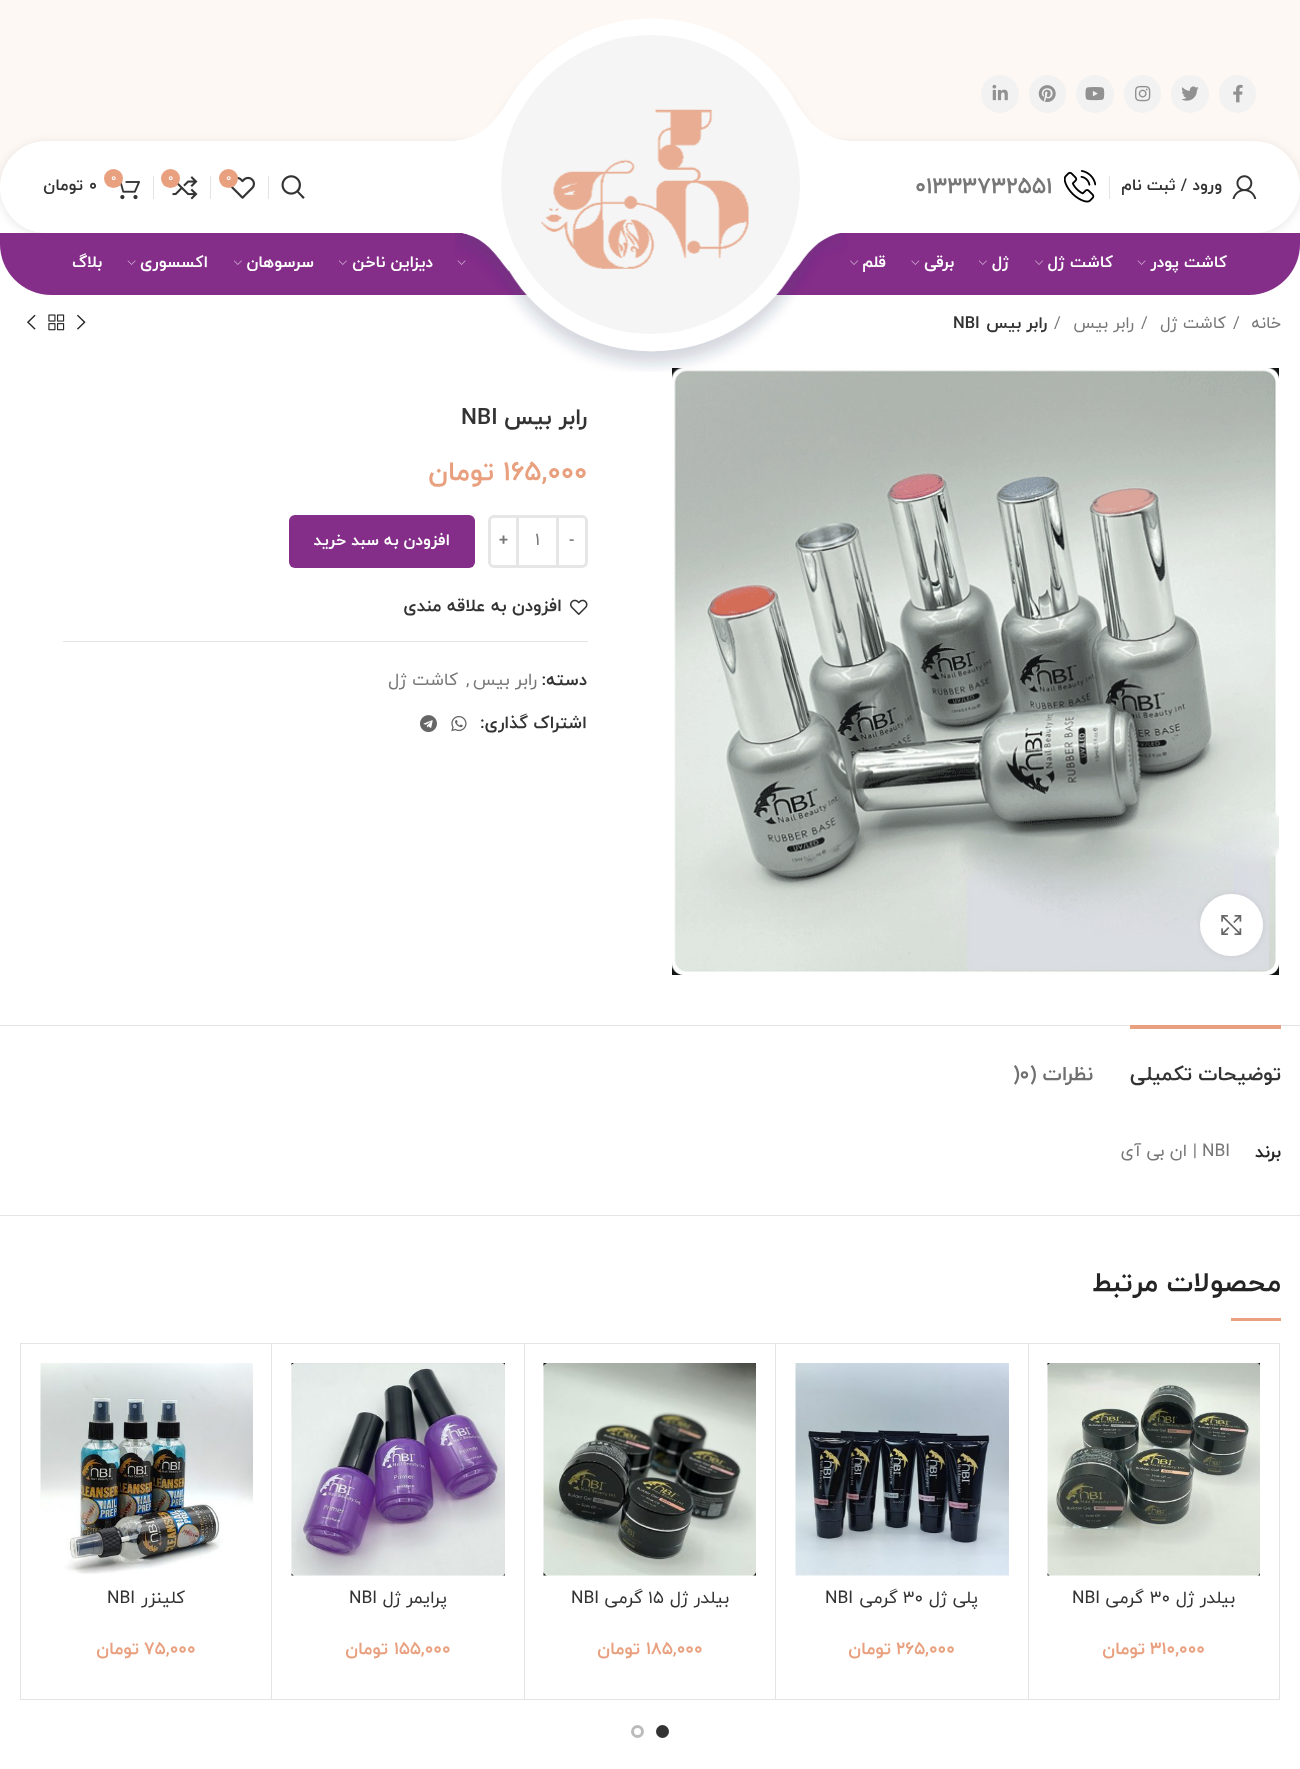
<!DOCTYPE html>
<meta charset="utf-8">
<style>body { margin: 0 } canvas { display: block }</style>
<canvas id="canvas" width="1300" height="1769"></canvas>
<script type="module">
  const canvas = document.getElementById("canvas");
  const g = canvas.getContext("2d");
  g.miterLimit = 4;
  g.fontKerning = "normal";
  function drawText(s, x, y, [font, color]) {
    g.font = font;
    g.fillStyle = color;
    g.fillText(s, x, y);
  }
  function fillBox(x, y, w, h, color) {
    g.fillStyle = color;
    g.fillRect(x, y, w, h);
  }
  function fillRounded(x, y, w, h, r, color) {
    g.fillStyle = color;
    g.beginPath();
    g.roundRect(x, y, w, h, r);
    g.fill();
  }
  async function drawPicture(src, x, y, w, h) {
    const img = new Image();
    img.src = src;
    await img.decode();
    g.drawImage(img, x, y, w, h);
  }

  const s1 = ["bold 16.25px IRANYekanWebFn", "#333333"];
  const s2 = ["bold 22.5px IRANYekanWebFn", "#777777"];
  const s3 = ["11px IRANYekanWebFn", "#FFFFFF"];
  const s4 = ["bold 16.25px IRANYekanWebFn", "#FFFFFF"];
  const s5 = ["16.5px IRANYekanWebFn", "#777777"];
  const s6 = ["bold 16.5px IRANYekanWebFn", "#333333"];
  const s7 = ["bold 22.5px IRANYekanWebFn", "#333333"];
  const s8 = ["bold 27px IRANYekanWebFn", "#E8A07F"];
  const s9 = ["bold 16.25px IRANYekanWebFn", "#777777"];
  const s10 = ["17.5px IRANYekanWebFn", "#777777"];
  const s11 = ["bold 17.5px IRANYekanWebFn", "#333333"];
  const s12 = ["bold 20px IRANYekanWebFn", "#333333"];
  const s13 = ["bold 20px IRANYekanWebFn", "#707070"];
  const s14 = ["bold 17.5px IRANYekanWebFn", "#242424"];
  const s15 = ["bold 27.5px IRANYekanWebFn", "#242424"];
  const s16 = ["17.5px IRANYekanWebFn", "#333333"];
  const s17 = ["bold 17.5px IRANYekanWebFn", "#E8A07F"];

  fillBox(0, 0, 1300, 1769, "#FFFFFF");
  fillBox(0, 0, 1300, 188, "#FEF8F4");
  fillRounded(1219, 75, 37, 38, 18.5, "#F2F2F2");
  await drawPicture("pic1.png", 1233, 84, 10, 19);
  g.beginPath();
  g.arc(1190, 94, 19, 0, Math.PI * 2);
  g.fill();
  await drawPicture("pic2.png", 1181, 86, 18, 15);
  fillRounded(1124, 75, 37, 38, 18.5, "#F2F2F2");
  await drawPicture("pic3.png", 1135, 85, 16, 17);
  g.beginPath();
  g.arc(1095, 94, 19, 0, Math.PI * 2);
  g.fill();
  await drawPicture("pic4.png", 1085, 87, 20, 14);
  fillRounded(1029, 75, 37, 38, 18.5, "#F2F2F2");
  await drawPicture("pic5.png", 1038, 85, 18, 17);
  g.beginPath();
  g.arc(1000, 94, 19, 0, Math.PI * 2);
  g.fill();
  await drawPicture("pic6.png", 992, 84, 16, 17);
  g.fillStyle = "rgba(0, 0, 0, 0.1)";
  g.filter = "blur(5px)";
  g.beginPath();
  g.roundRect(0, 143, 1300, 91, 45.5);
  g.fill();
  g.filter = "none";
  fillRounded(0, 141, 1300, 92, 46, "#FFFFFF");
  g.fillStyle = "#842D89";
  g.beginPath();
  g.roundRect(0, 233, 1300, 62, [0, 0, 51, 51]);
  g.fill();
  await drawPicture("pic23.png", 672, 368, 607, 607);
  await drawPicture("pic7.png", 455, 18, 393, 354);
  await drawPicture("pic8.png", 1232, 175, 25, 24);
  g.direction = "rtl";
  drawText("ورود / ثبت نام", 1222, 190, s1);
  fillBox(1109, 176, 1, 23, "#E4E4E4");
  await drawPicture("pic9.png", 1064, 170, 32, 33);
  g.direction = "ltr";
  drawText("01333732551", 915, 193, s2);
  g.fillStyle = "#F5F5F5";
  g.beginPath();
  g.arc(650.5, 184.5, 149.5, 0, Math.PI * 2);
  g.fill();
  await drawPicture("pic10.png", 541, 109, 208, 160);
  await drawPicture("pic11.png", 281, 175, 24, 24);
  fillBox(268, 176, 1, 23, "#E4E4E4");
  await drawPicture("pic12.png", 230, 176, 25, 23);
  g.fillStyle = "#E8A07F";
  g.beginPath();
  g.arc(228.5, 178.5, 9.5, 0, Math.PI * 2);
  g.fill();
  drawText("0", 226, 181, s3);
  fillBox(210, 176, 1, 23, "#E4E4E4");
  await drawPicture("pic13.png", 172, 176, 26, 24);
  g.fillStyle = "#E8A07F";
  g.beginPath();
  g.arc(170.5, 178.5, 9.5, 0, Math.PI * 2);
  g.fill();
  drawText("0", 168, 181, s3);
  fillBox(153, 176, 1, 23, "#E4E4E4");
  await drawPicture("pic14.png", 120, 181, 20, 19);
  g.fillStyle = "#E8A07F";
  g.beginPath();
  g.arc(113.5, 178.5, 9.5, 0, Math.PI * 2);
  g.fill();
  drawText("0", 111, 181, s3);
  drawText("۰", 89, 190, s1);
  g.direction = "rtl";
  drawText("تومان", 83, 190, s1);
  drawText("کاشت پودر", 1227, 267, s4);
  await drawPicture("pic15.png", 1137, 260, 9, 5);
  drawText("کاشت ژل", 1113, 267, s4);
  await drawPicture("pic16.png", 1035, 260, 8, 5);
  drawText("ژل", 1009, 267, s4);
  await drawPicture("pic17.png", 978, 260, 9, 5);
  drawText("برقی", 954, 267, s4);
  await drawPicture("pic18.png", 911, 260, 9, 5);
  drawText("قلم", 886, 267, s4);
  await drawPicture("pic16.png", 850, 260, 8, 5);
  await drawPicture("pic19.png", 457, 260, 9, 5);
  drawText("دیزاین ناخن", 433, 267, s4);
  await drawPicture("pic17.png", 338, 260, 9, 5);
  drawText("سرسوهان", 314, 267, s4);
  await drawPicture("pic17.png", 233, 260, 9, 5);
  drawText("اکسسوری", 208, 267, s4);
  await drawPicture("pic15.png", 127, 260, 9, 5);
  drawText("بلاگ", 102, 267, s4);
  drawText("خانه", 1281, 328, s5);
  g.direction = "ltr";
  drawText("/", 1233, 328, s5);
  g.direction = "rtl";
  drawText("کاشت ژل", 1226, 328, s5);
  g.direction = "ltr";
  drawText("/", 1141, 328, s5);
  g.direction = "rtl";
  drawText("رابر بیس", 1134, 328, s5);
  g.direction = "ltr";
  drawText("/", 1054, 328, s5);
  g.direction = "rtl";
  drawText("رابر بیس", 1047, 328, s6);
  g.direction = "ltr";
  drawText("NBI", 953, 328, s6);
  await drawPicture("pic20.png", 77, 314, 9, 16);
  await drawPicture("pic21.png", 48, 314, 17, 17);
  await drawPicture("pic22.png", 27, 314, 9, 16);
  g.fillStyle = "rgba(0, 0, 0, 0.08)";
  g.filter = "blur(3px)";
  g.beginPath();
  g.roundRect(1200, 894, 63, 62, 31);
  g.fill();
  g.filter = "none";
  fillRounded(1200, 894, 63, 62, 31, "#FFFFFF");
  await drawPicture("pic24.png", 1221, 915, 21, 20);
  g.direction = "rtl";
  drawText("رابر بیس", 587, 424, s7);
  g.direction = "ltr";
  drawText("NBI", 461, 424, s7);
  drawText("۱۶۵,۰۰۰", 503, 480, s8);
  g.direction = "rtl";
  drawText("تومان", 494, 480, s8);
  g.beginPath();
  g.roundRect(557.5, 516.5, 29, 50, [0, 4.5, 4.5, 0]);
  g.strokeStyle = "#E6E6E6";
  g.lineWidth = 3;
  g.stroke();
  g.direction = "ltr";
  drawText("-", 569, 545, s9);
  fillBox(519, 515, 37, 3, "#E6E6E6");
  fillBox(519, 565, 37, 3, "#E6E6E6");
  drawText("1", 535, 545, s10);
  g.beginPath();
  g.roundRect(489.5, 516.5, 28, 50, [4.5, 0, 0, 4.5]);
  g.stroke();
  drawText("+", 499, 545, s9);
  fillRounded(289, 515, 186, 53, 6, "#842D89");
  g.direction = "rtl";
  drawText("افزودن به سبد خرید", 450, 545, s4);
  await drawPicture("pic25.png", 570, 599, 18, 16);
  drawText("افزودن به علاقه مندی", 562, 611, s11);
  fillBox(63, 641, 525, 1, "#E4E4E4");
  drawText("دسته:", 587, 685, s11);
  drawText("رابر بیس", 537, 685, s10);
  g.direction = "ltr";
  drawText(",", 466, 685, s10);
  g.direction = "rtl";
  drawText("کاشت ژل", 458, 685, s10);
  drawText("اشتراک گذاری:", 587, 728, s11);
  await drawPicture("pic26.png", 451, 716, 16, 16);
  await drawPicture("pic27.png", 420, 715, 17, 18);
  fillBox(0, 1025, 1300, 1, "#E4E4E4");
  fillBox(0, 1215, 1300, 1, "#E4E4E4");
  fillBox(1130, 1025, 151, 4, "#E8A07F");
  drawText("توضیحات تکمیلی", 1281, 1080, s12);
  drawText("نظرات (", 1093, 1080, s13);
  g.direction = "ltr";
  drawText(")0", 1013, 1080, s13);
  g.direction = "rtl";
  drawText("برند", 1281, 1157, s14);
  g.direction = "ltr";
  drawText("NBI", 1202, 1156, s10);
  g.direction = "rtl";
  drawText("| ان بی آی", 1197, 1156, s10);
  drawText("محصولات مرتبط", 1281, 1291, s15);
  fillBox(1231, 1318, 50, 3, "#E8A07F");
  g.strokeStyle = "#E4E4E4";
  g.lineWidth = 1;
  g.strokeRect(20.5, 1343.5, 1259, 356);
  fillBox(1028, 1344, 1, 355, "#E4E4E4");
  await drawPicture("pic28.png", 1047, 1363, 213, 213);
  drawText("بیلدر ژل", 1235, 1603, s16);
  g.direction = "ltr";
  drawText("30", 1150, 1603, s16);
  g.direction = "rtl";
  drawText("گرمی", 1144, 1603, s16);
  g.direction = "ltr";
  drawText("NBI", 1072, 1603, s16);
  drawText("۳۱۰,۰۰۰", 1150, 1654, s17);
  g.direction = "rtl";
  drawText("تومان", 1145, 1654, s17);
  fillBox(775, 1344, 1, 355, "#E4E4E4");
  await drawPicture("pic29.png", 795, 1363, 214, 213);
  drawText("پلی ژل", 978, 1603, s16);
  g.direction = "ltr";
  drawText("30", 903, 1603, s16);
  g.direction = "rtl";
  drawText("گرمی", 898, 1603, s16);
  g.direction = "ltr";
  drawText("NBI", 825, 1603, s16);
  drawText("۲۶۵,۰۰۰", 896, 1654, s17);
  g.direction = "rtl";
  drawText("تومان", 891, 1654, s17);
  fillBox(524, 1344, 1, 355, "#E4E4E4");
  await drawPicture("pic30.png", 543, 1363, 213, 213);
  drawText("بیلدر ژل", 729, 1603, s16);
  g.direction = "ltr";
  drawText("۱۵", 648, 1603, s16);
  g.direction = "rtl";
  drawText("گرمی", 643, 1603, s16);
  g.direction = "ltr";
  drawText("NBI", 571, 1603, s16);
  drawText("۱۸۵,۰۰۰", 646, 1654, s17);
  g.direction = "rtl";
  drawText("تومان", 640, 1654, s17);
  fillBox(271, 1344, 1, 355, "#E4E4E4");
  await drawPicture("pic31.png", 291, 1363, 214, 213);
  drawText("پرایمر ژل", 447, 1603, s16);
  g.direction = "ltr";
  drawText("NBI", 349, 1603, s16);
  drawText("۱۵۵,۰۰۰", 394, 1654, s17);
  g.direction = "rtl";
  drawText("تومان", 388, 1654, s17);
  await drawPicture("pic32.png", 40, 1363, 213, 211);
  drawText("کلینزر", 185, 1603, s16);
  g.direction = "ltr";
  drawText("NBI", 107, 1603, s16);
  drawText("۷۵,۰۰۰", 144, 1654, s17);
  g.direction = "rtl";
  drawText("تومان", 139, 1654, s17);
  g.fillStyle = "#333333";
  g.beginPath();
  g.arc(662.5, 1731.5, 5, 0, Math.PI * 2);
  g.fill();
  g.strokeStyle = "#333333";
  g.lineWidth = 3;
  g.stroke();
  g.beginPath();
  g.arc(637.5, 1731.5, 5, 0, Math.PI * 2);
  g.strokeStyle = "#BBBBBB";
  g.stroke();
</script>
